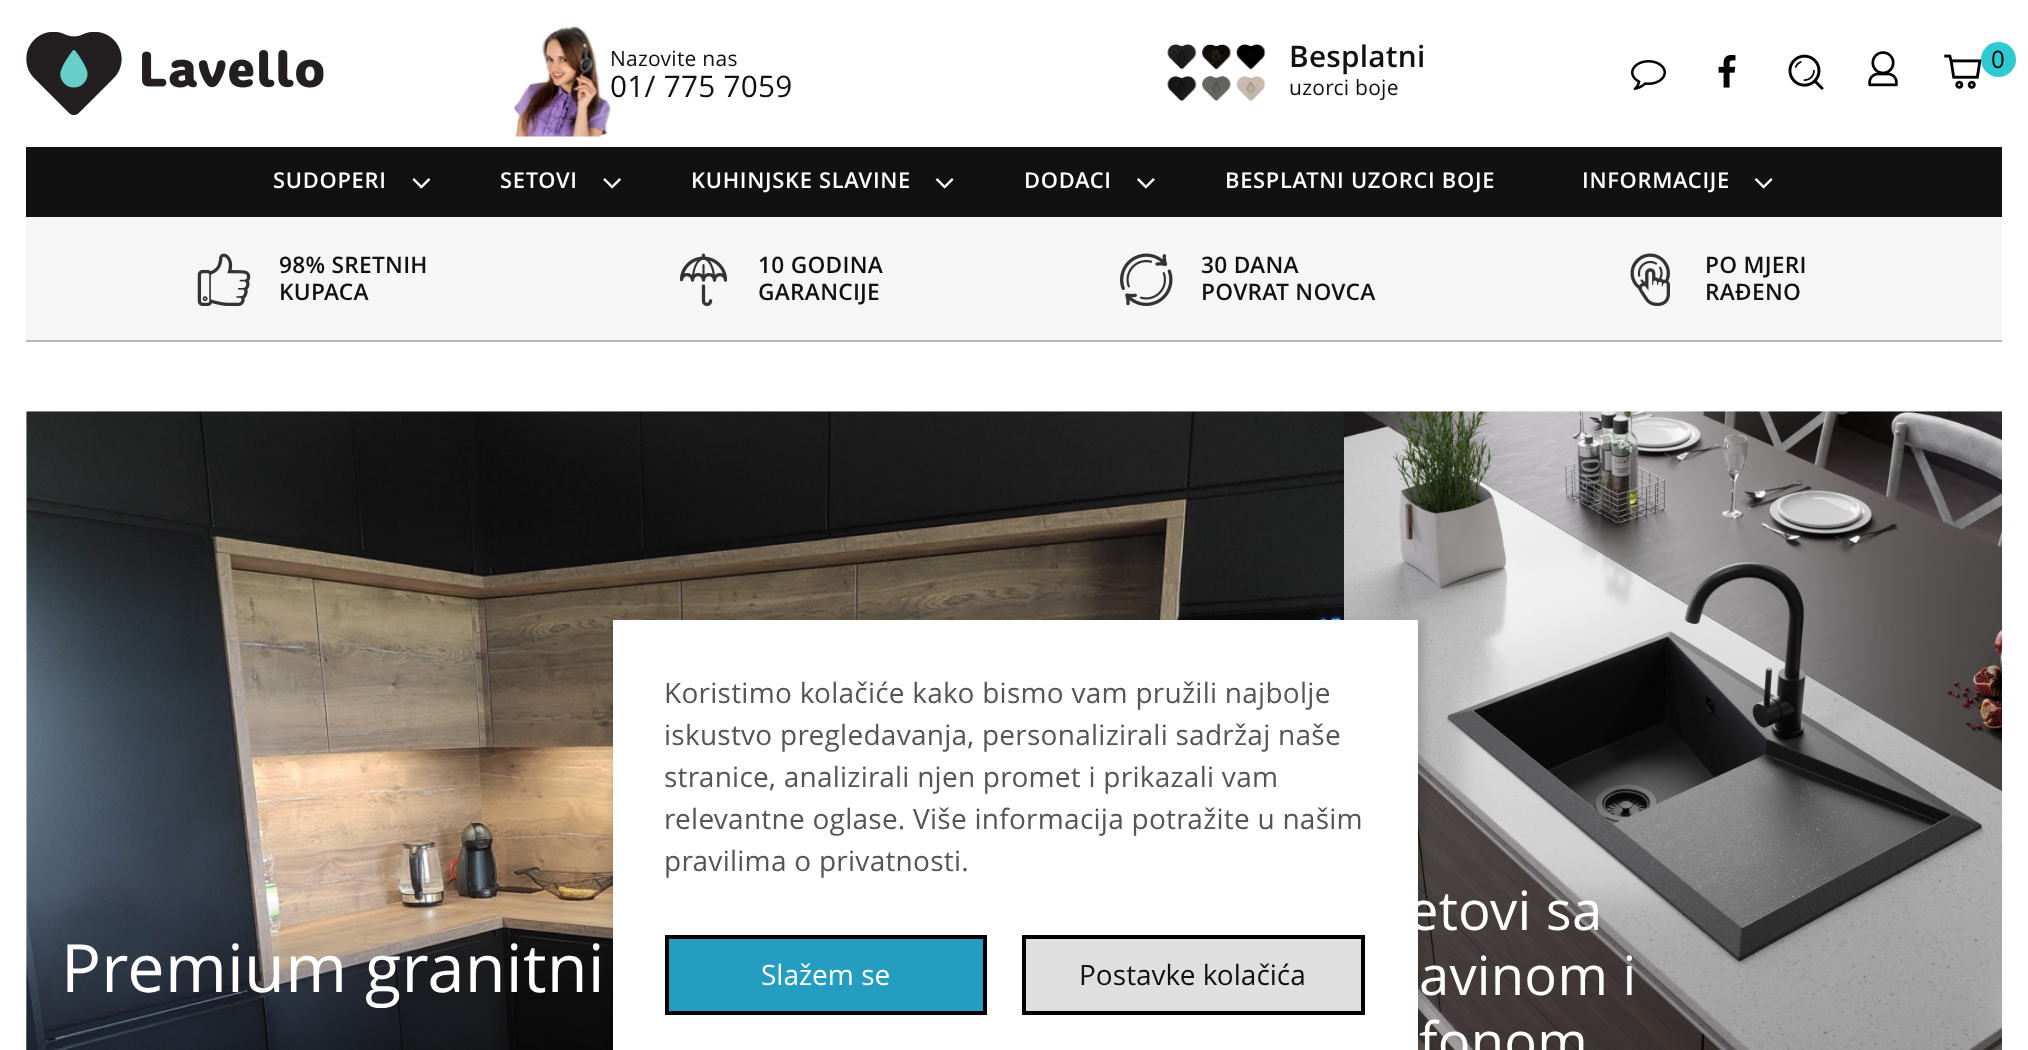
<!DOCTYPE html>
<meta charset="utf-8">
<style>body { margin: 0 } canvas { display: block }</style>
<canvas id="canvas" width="2028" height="1050"></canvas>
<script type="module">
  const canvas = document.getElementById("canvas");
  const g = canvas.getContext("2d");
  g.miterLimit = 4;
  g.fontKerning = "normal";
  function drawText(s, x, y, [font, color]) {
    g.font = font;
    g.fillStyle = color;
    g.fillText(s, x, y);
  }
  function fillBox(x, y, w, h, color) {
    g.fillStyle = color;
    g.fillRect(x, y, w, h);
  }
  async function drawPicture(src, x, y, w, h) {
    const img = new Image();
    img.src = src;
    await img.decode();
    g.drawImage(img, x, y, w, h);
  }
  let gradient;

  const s1 = ["21px Open Sans", "#111111"];
  const s2 = ["29.75px Open Sans", "#111111"];
  const s3 = ["600 29.75px Open Sans", "#111111"];
  const s4 = ["24px Open Sans", "#000000"];
  const s5 = ["600 21.9px Open Sans", "#FFFFFF"];
  const s6 = ["600 22.75px Open Sans", "#111111"];
  const s7 = ["28px Open Sans", "#555555"];
  const s8 = ["28px Open Sans", "#FFFFFF"];
  const s9 = ["28px Open Sans", "#111111"];
  const s10 = ["66.5px Open Sans", "#FFFFFF"];
  const s11 = ["54.25px Open Sans", "#FFFFFF"];

  fillBox(0, 0, 2028, 1050, "#FFFFFF");
  await drawPicture("pic1.png", 26, 32, 298, 83);
  await drawPicture("pic2.png", 513, 26, 98, 111);
  g.letterSpacing = "0.25px";
  drawText("Nazovite nas", 610, 66, s1);
  drawText("01/ 775 7059", 610, 97, s2);
  await drawPicture("pic3.png", 1167, 44, 99, 58);
  drawText("Besplatni", 1289, 67, s3);
  drawText("uzorci boje", 1289, 95, s1);
  await drawPicture("pic4.png", 1631, 60, 35, 30);
  await drawPicture("pic5.png", 1718, 55, 18, 33);
  await drawPicture("pic6.png", 1788, 54, 36, 36);
  await drawPicture("pic7.png", 1868, 51, 30, 36);
  await drawPicture("pic8.png", 1944, 54, 38, 35);
  g.fillStyle = "#2DCBD1";
  g.beginPath();
  g.arc(1998.5, 59.5, 17.5, 0, Math.PI * 2);
  g.fill();
  g.letterSpacing = "0px";
  drawText("0", 1991, 68, s4);
  fillBox(26, 147, 1976, 70, "#111111");
  g.letterSpacing = "0.7px";
  drawText("SUDOPERI", 273, 188, s5);
  await drawPicture("pic9.png", 412, 178, 19, 11);
  drawText("SETOVI", 500, 188, s5);
  await drawPicture("pic10.png", 603, 178, 18, 11);
  drawText("KUHINJSKE SLAVINE", 691, 188, s5);
  await drawPicture("pic11.png", 935, 178, 19, 11);
  drawText("DODACI", 1024, 188, s5);
  await drawPicture("pic12.png", 1137, 178, 18, 11);
  drawText("BESPLATNI UZORCI BOJE", 1225, 188, s5);
  drawText("INFORMACIJE", 1582, 188, s5);
  await drawPicture("pic11.png", 1754, 178, 19, 11);
  fillBox(26, 217, 1976, 123, "#F6F6F6");
  fillBox(26, 340, 1976, 2, "#B2BABE");
  await drawPicture("pic13.png", 197, 253, 54, 53);
  g.letterSpacing = "0.25px";
  drawText("98% SRETNIH", 279, 273, s6);
  drawText("KUPACA", 279, 300, s6);
  await drawPicture("pic14.png", 679, 253, 49, 53);
  drawText("10 GODINA", 758, 273, s6);
  drawText("GARANCIJE", 758, 300, s6);
  await drawPicture("pic15.png", 1120, 253, 53, 53);
  drawText("30 DANA", 1201, 273, s6);
  drawText("POVRAT NOVCA", 1201, 300, s6);
  await drawPicture("pic16.png", 1630, 253, 40, 53);
  drawText("PO MJERI", 1705, 273, s6);
  drawText("RAĐENO", 1705, 300, s6);
  await drawPicture("pic17.png", 26, 411, 1318, 639);
  gradient = g.createLinearGradient(685, 892, 685, 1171);
  gradient.addColorStop(0, "rgba(0, 0, 0, 0)");
  gradient.addColorStop(1, "rgba(0, 0, 0, 0.63)");
  g.fillStyle = gradient;
  g.fillRect(26, 902, 587, 148);
  await drawPicture("pic18.png", 1344, 411, 658, 639);
  g.fillStyle = "rgba(0, 0, 0, 0.2)";
  g.filter = "blur(6px)";
  g.beginPath();
  g.rect(616, 625, 805, 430);
  g.fill();
  g.filter = "none";
  fillBox(613, 620, 805, 430, "#FFFFFF");
  drawText("Koristimo kolačiće kako bismo vam pružili najbolje", 664, 703, s7);
  drawText("iskustvo pregledavanja, personalizirali sadržaj naše", 664, 745, s7);
  drawText("stranice, analizirali njen promet i prikazali vam", 664, 787, s7);
  drawText("relevantne oglase. Više informacija potražite u našim", 664, 829, s7);
  drawText("pravilima o privatnosti.", 664, 871, s7);
  g.fillStyle = "#249DC1";
  g.beginPath();
  g.rect(667, 937, 318, 76);
  g.fill();
  g.strokeStyle = "#000000";
  g.lineWidth = 4;
  g.stroke();
  g.letterSpacing = "0px";
  drawText("Slažem se", 761, 985, s8);
  g.fillStyle = "#DFDFDF";
  g.beginPath();
  g.rect(1024, 937, 339, 76);
  g.fill();
  g.stroke();
  drawText("Postavke kolačića", 1079, 985, s9);
  g.letterSpacing = "0.25px";
  drawText("Premium granitni", 61, 992, s10);
  drawText("etovi sa", 1408, 930, s11);
  drawText("avinom i", 1419, 995, s11);
  drawText("fonom", 1419, 1061, s11);
</script>
